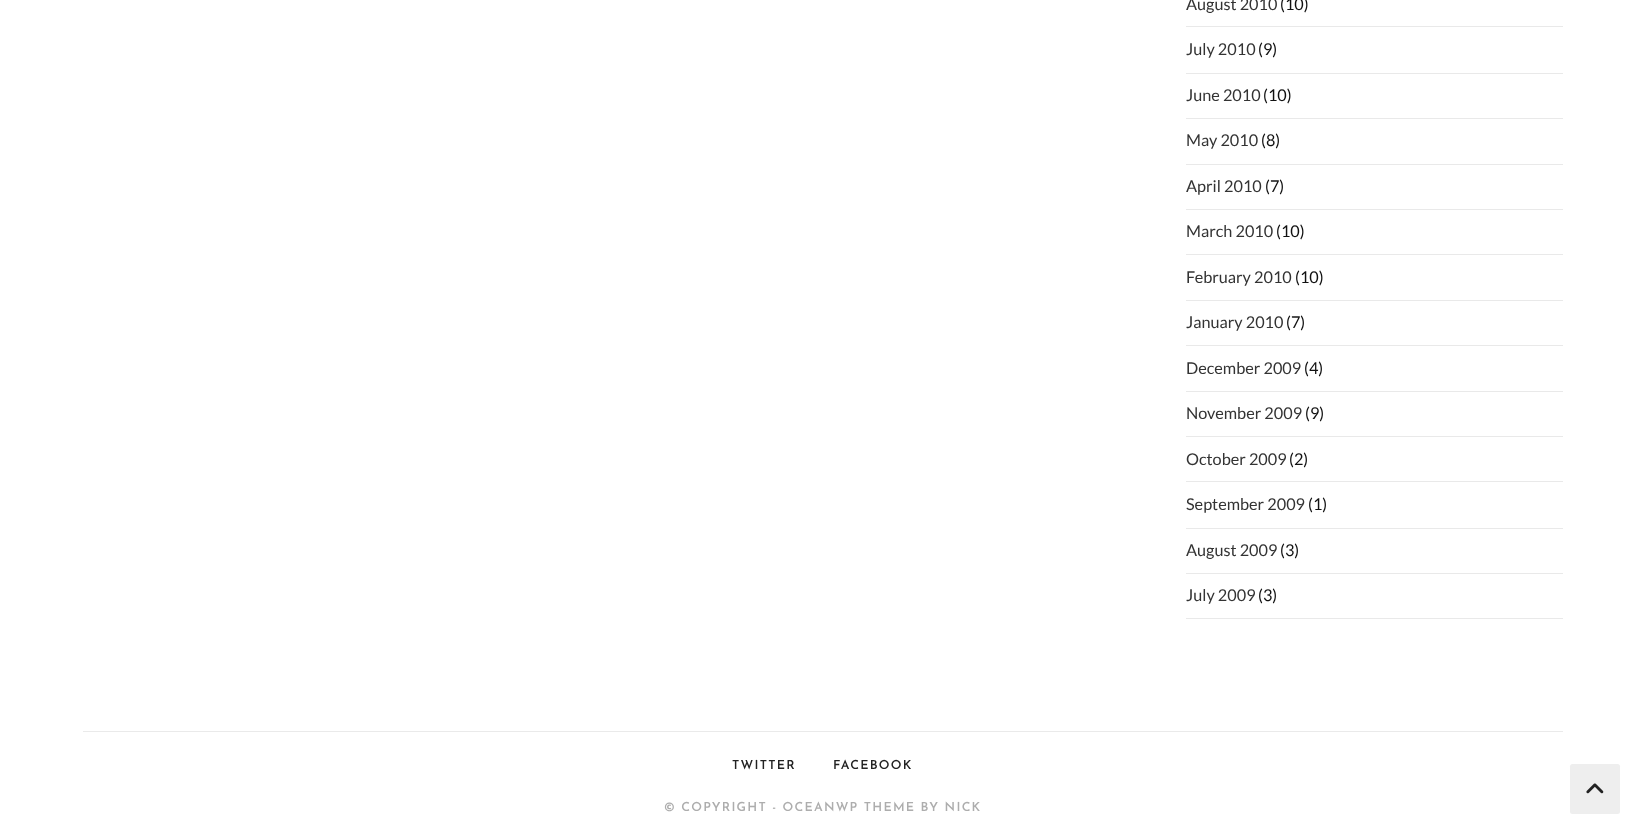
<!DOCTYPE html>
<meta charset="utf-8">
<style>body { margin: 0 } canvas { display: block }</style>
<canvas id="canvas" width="1644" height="838"></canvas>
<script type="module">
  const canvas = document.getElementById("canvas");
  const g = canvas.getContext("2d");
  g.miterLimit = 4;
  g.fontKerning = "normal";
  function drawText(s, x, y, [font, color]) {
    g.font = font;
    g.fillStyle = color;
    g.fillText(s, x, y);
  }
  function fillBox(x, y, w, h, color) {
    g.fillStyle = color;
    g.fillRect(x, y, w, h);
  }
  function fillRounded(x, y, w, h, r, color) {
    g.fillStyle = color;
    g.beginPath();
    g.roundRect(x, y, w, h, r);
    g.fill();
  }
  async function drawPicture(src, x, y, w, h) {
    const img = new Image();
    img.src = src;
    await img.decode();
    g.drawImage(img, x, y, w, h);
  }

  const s1 = ["16.25px Lato", "#333333"];
  const s2 = ["16.25px Lato", "#111111"];
  const s3 = ["600 12.5px Josefin Sans", "#222222"];
  const s4 = ["600 12.5px Josefin Sans", "#ADADAD"];

  fillBox(0, 0, 1644, 838, "#FFFFFF");
  fillBox(1186, 26, 377, 1, "#E9E9E9");
  drawText("August 2010", 1186, 10, s1);
  drawText("(10)", 1280, 10, s2);
  fillBox(1186, 73, 377, 1, "#E9E9E9");
  drawText("July 2010", 1186, 55, s1);
  drawText("(9)", 1258, 55, s2);
  fillBox(1186, 118, 377, 1, "#E9E9E9");
  drawText("June 2010", 1186, 101, s1);
  drawText("(10)", 1263, 101, s2);
  fillBox(1186, 164, 377, 1, "#E9E9E9");
  drawText("May 2010", 1186, 146, s1);
  drawText("(8)", 1261, 146, s2);
  fillBox(1186, 209, 377, 1, "#E9E9E9");
  drawText("April 2010", 1186, 192, s1);
  drawText("(7)", 1265, 192, s2);
  fillBox(1186, 254, 377, 1, "#E9E9E9");
  drawText("March 2010", 1186, 237, s1);
  drawText("(10)", 1276, 237, s2);
  fillBox(1186, 300, 377, 1, "#E9E9E9");
  drawText("February 2010", 1186, 283, s1);
  drawText("(10)", 1295, 283, s2);
  fillBox(1186, 345, 377, 1, "#E9E9E9");
  drawText("January 2010", 1186, 328, s1);
  drawText("(7)", 1286, 328, s2);
  fillBox(1186, 391, 377, 1, "#E9E9E9");
  drawText("December 2009", 1186, 374, s1);
  drawText("(4)", 1304, 374, s2);
  fillBox(1186, 436, 377, 1, "#E9E9E9");
  drawText("November 2009", 1186, 419, s1);
  drawText("(9)", 1305, 419, s2);
  fillBox(1186, 481, 377, 1, "#E9E9E9");
  drawText("October 2009", 1186, 465, s1);
  drawText("(2)", 1289, 465, s2);
  fillBox(1186, 528, 377, 1, "#E9E9E9");
  drawText("September 2009", 1186, 510, s1);
  drawText("(1)", 1308, 510, s2);
  fillBox(1186, 573, 377, 1, "#E9E9E9");
  drawText("August 2009", 1186, 556, s1);
  drawText("(3)", 1280, 556, s2);
  fillBox(1186, 618, 377, 1, "#E9E9E9");
  drawText("July 2009", 1186, 601, s1);
  drawText("(3)", 1258, 601, s2);
  fillBox(83, 731, 1480, 1, "#EAEAEA");
  g.letterSpacing = "1.25px";
  drawText("TWITTER", 732, 769, s3);
  drawText("FACEBOOK", 833, 769, s3);
  drawText("© COPYRIGHT - OCEANWP THEME BY NICK", 664, 811, s4);
  fillRounded(1570, 764, 50, 50, 2.5, "#EEEEEE");
  await drawPicture("pic1.png", 1586, 783, 18, 11);
</script>
